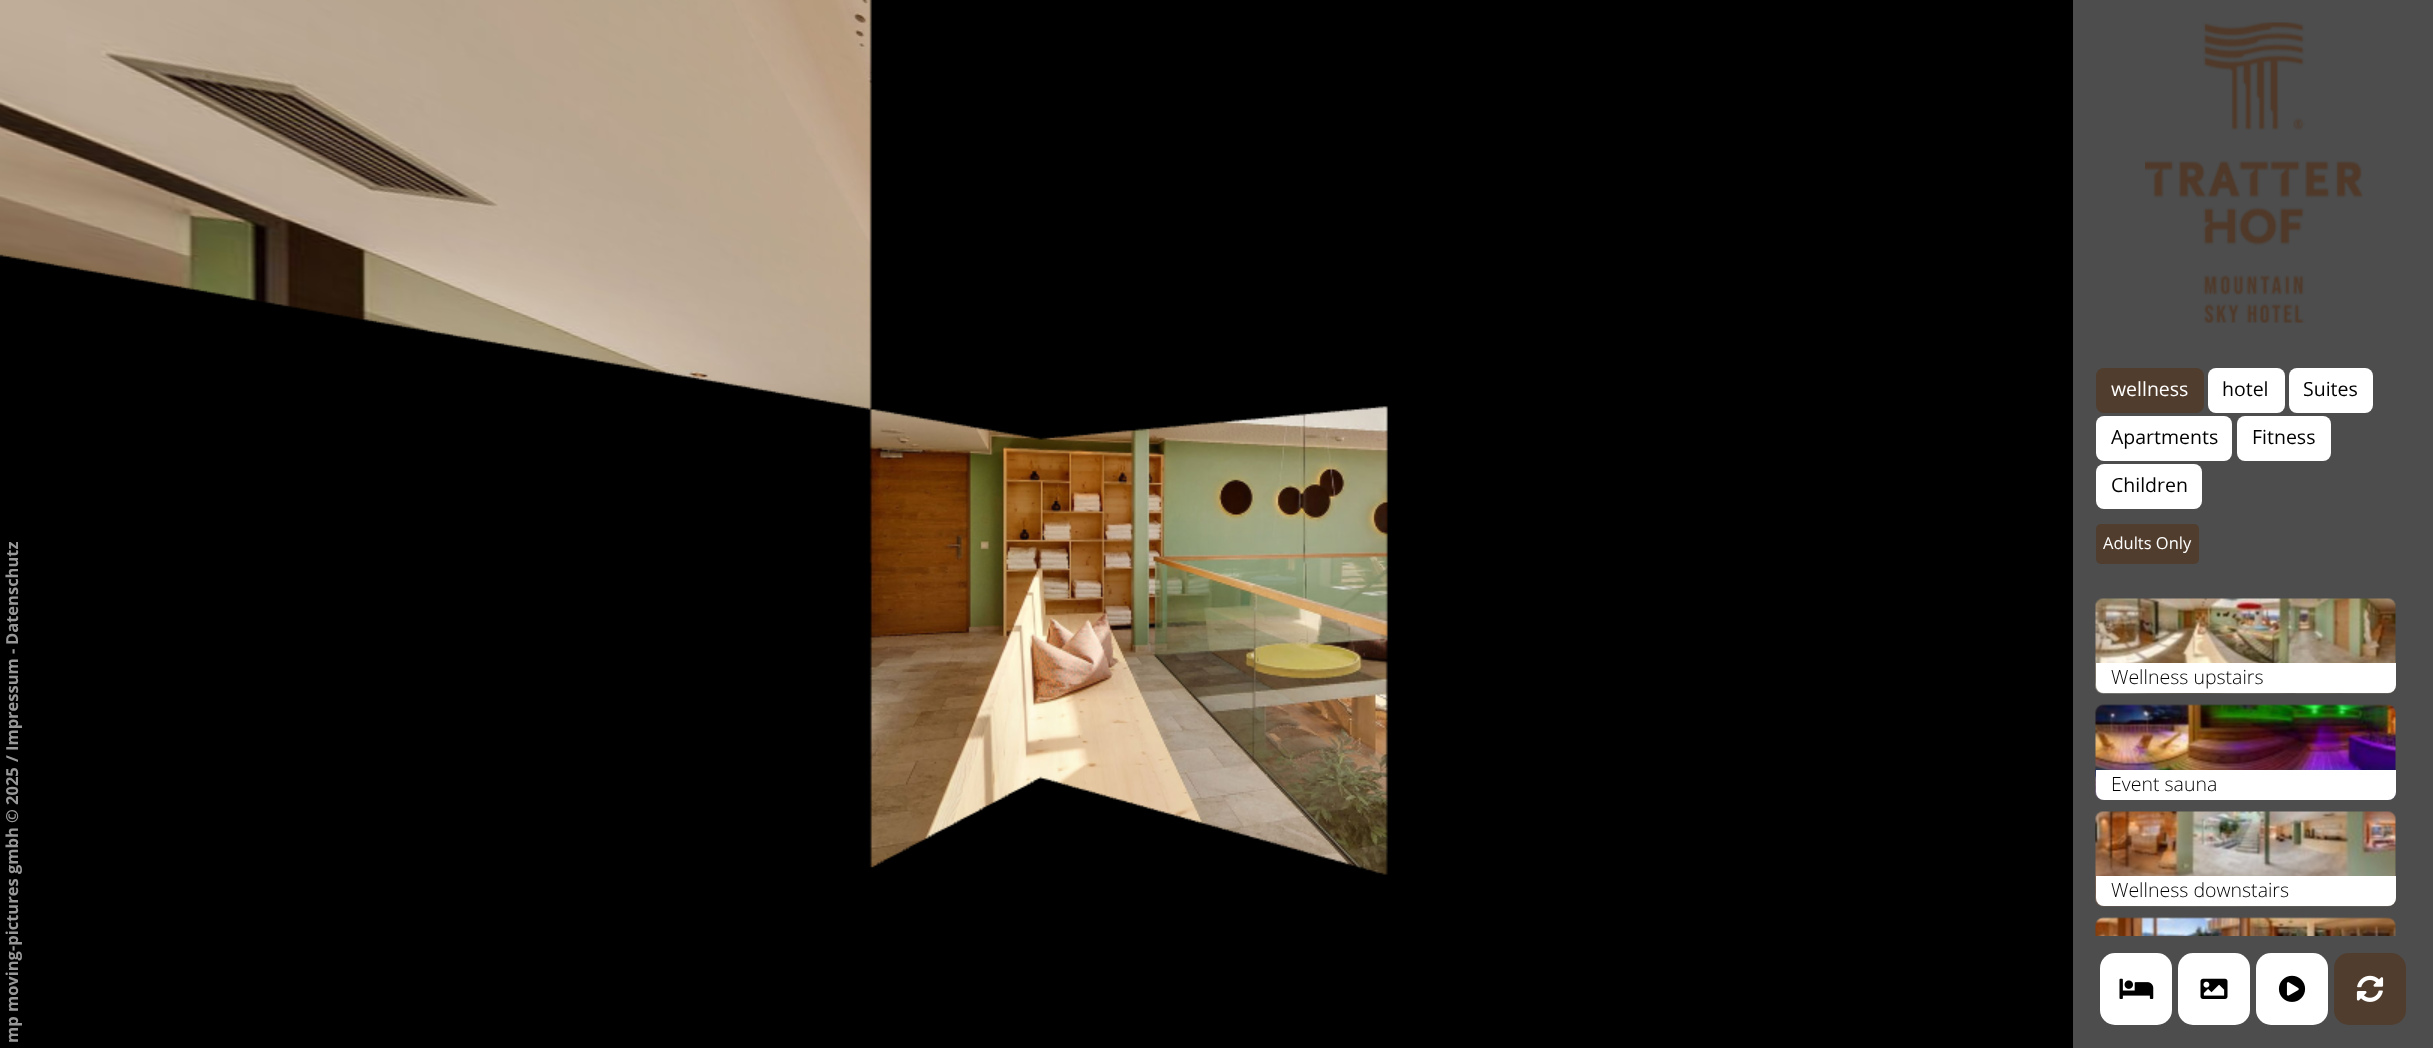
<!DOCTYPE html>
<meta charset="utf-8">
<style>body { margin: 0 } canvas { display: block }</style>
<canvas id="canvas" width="2433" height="1048"></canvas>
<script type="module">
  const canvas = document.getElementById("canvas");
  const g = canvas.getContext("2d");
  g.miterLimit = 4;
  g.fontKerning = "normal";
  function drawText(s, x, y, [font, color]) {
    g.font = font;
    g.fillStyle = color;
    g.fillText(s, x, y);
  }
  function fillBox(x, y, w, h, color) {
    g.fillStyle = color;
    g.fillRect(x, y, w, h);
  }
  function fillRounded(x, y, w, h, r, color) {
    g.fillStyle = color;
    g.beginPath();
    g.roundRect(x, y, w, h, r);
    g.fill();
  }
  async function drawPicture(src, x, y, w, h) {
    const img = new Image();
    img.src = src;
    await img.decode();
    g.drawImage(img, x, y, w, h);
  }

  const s1 = ["19.5px Open Sans", "#FFFFFF"];
  const s2 = ["19.5px Open Sans", "#000000"];
  const s3 = ["16.5px Open Sans", "#FFFFFF"];
  const s4 = ["300 19.5px Open Sans", "#000000"];

  fillBox(0, 0, 2433, 1048, "#000000");
  await drawPicture("pic1.png", 0, 0, 1388, 875);
  fillBox(2073, 0, 360, 1048, "#4D4D4D");
  await drawPicture("pic2.png", 2145, 22, 218, 301);
  fillRounded(2096, 368, 108, 45, 8, "#513D2D");
  drawText("wellness", 2111, 396, s1);
  fillRounded(2208, 368, 77, 45, 8, "#FFFFFF");
  drawText("hotel", 2222, 396, s2);
  fillRounded(2289, 368, 84, 45, 8, "#FFFFFF");
  drawText("Suites", 2303, 396, s2);
  fillRounded(2096, 416, 136, 45, 8, "#FFFFFF");
  drawText("Apartments", 2111, 444, s2);
  fillRounded(2237, 416, 94, 45, 8, "#FFFFFF");
  drawText("Fitness", 2252, 444, s2);
  fillRounded(2096, 464, 106, 45, 8, "#FFFFFF");
  drawText("Children", 2111, 492, s2);
  fillRounded(2096, 524, 103, 40, 5, "#513D2D");
  drawText("Adults Only", 2103, 549, s3);
  await drawPicture("pic3.png", 2095, 598, 301, 96);
  g.beginPath();
  g.roundRect(2096, 663, 300, 30, [0, 0, 8, 8]);
  g.fill();
  drawText("Wellness upstairs", 2111, 684, s4);
  await drawPicture("pic4.png", 2095, 704, 301, 96);
  g.fillStyle = "#FFFFFF";
  g.beginPath();
  g.roundRect(2096, 770, 300, 30, [0, 0, 8, 8]);
  g.fill();
  drawText("Event sauna", 2111, 791, s4);
  await drawPicture("pic5.png", 2095, 811, 301, 96);
  g.fillStyle = "#FFFFFF";
  g.beginPath();
  g.roundRect(2096, 876, 300, 30, [0, 0, 8, 8]);
  g.fill();
  drawText("Wellness downstairs", 2111, 897, s4);
  await drawPicture("pic6.png", 2095, 917, 301, 19);
  fillRounded(2100, 953, 72, 72, 15, "#FFFFFF");
  await drawPicture("pic7.png", 2119, 978, 35, 21);
  fillRounded(2178, 953, 72, 72, 15, "#FFFFFF");
  await drawPicture("pic8.png", 2200, 978, 28, 21);
  fillRounded(2256, 953, 72, 72, 15, "#FFFFFF");
  await drawPicture("pic9.png", 2278, 975, 28, 27);
  fillRounded(2334, 953, 72, 72, 15, "#513D2D");
  await drawPicture("pic10.png", 2356, 975, 28, 27);
  g.font = "bold 16.5px Open Sans";
  g.fillStyle = "#999999";
  g.save();
  g.translate(18, 645);
  g.rotate(-90 * Math.PI / 180);
  g.fillText("Datenschutz", 0, 0);
  g.restore();
  g.save();
  g.translate(18, 654);
  g.rotate(-90 * Math.PI / 180);
  g.fillText("-", 0, 0);
  g.restore();
  g.save();
  g.translate(18, 751);
  g.rotate(-90 * Math.PI / 180);
  g.fillText("Impressum", 0, 0);
  g.restore();
  g.save();
  g.translate(18, 762);
  g.rotate(-90 * Math.PI / 180);
  g.fillText("/", 0, 0);
  g.restore();
  g.save();
  g.translate(18, 1043);
  g.rotate(-90 * Math.PI / 180);
  g.fillText("mp moving-pictures gmbh © 2025", 0, 0);
  g.restore();
</script>
